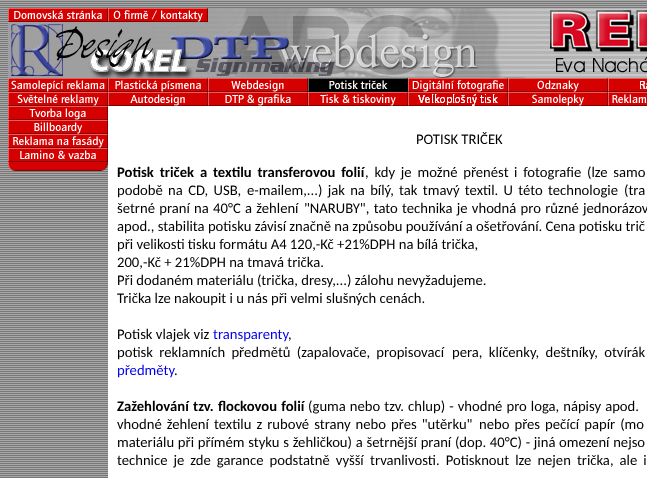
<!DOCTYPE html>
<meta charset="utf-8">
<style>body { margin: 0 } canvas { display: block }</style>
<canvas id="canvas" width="647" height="478"></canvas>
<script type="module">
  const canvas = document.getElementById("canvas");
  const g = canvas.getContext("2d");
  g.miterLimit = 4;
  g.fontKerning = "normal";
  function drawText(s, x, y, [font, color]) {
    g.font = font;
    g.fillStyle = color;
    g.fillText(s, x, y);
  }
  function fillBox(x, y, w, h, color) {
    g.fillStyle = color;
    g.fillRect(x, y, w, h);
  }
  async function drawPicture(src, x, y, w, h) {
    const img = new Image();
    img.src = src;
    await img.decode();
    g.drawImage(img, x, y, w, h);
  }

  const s1 = ["14.65px Carlito", "#000000"];
  const s2 = ["bold 14.65px Carlito", "#000000"];
  const s3 = ["14.65px Carlito", "#0000EE"];

  fillBox(0, 0, 647, 478, "#FFFFFF");
  await drawPicture("pic1.png", 0, 0, 647, 478);
  await drawPicture("pic2.png", 8, 8, 100, 14);
  await drawPicture("pic3.png", 108, 8, 100, 14);
  await drawPicture("pic4.png", 208, 8, 439, 70);
  await drawPicture("pic5.png", 8, 22, 200, 56);
  await drawPicture("pic6.png", 8, 78, 100, 14);
  await drawPicture("pic7.png", 108, 78, 100, 14);
  await drawPicture("pic8.png", 208, 78, 100, 14);
  await drawPicture("pic9.png", 308, 78, 100, 14);
  await drawPicture("pic10.png", 408, 78, 100, 14);
  await drawPicture("pic11.png", 508, 78, 100, 14);
  await drawPicture("pic12.png", 608, 78, 39, 14);
  await drawPicture("pic13.png", 8, 92, 100, 14);
  await drawPicture("pic14.png", 108, 92, 100, 14);
  await drawPicture("pic15.png", 208, 92, 100, 14);
  await drawPicture("pic16.png", 308, 92, 100, 14);
  await drawPicture("pic17.png", 408, 92, 100, 14);
  await drawPicture("pic18.png", 508, 92, 100, 14);
  await drawPicture("pic19.png", 608, 92, 39, 14);
  await drawPicture("pic20.png", 8, 106, 100, 14);
  await drawPicture("pic21.png", 8, 120, 100, 14);
  await drawPicture("pic22.png", 8, 134, 100, 14);
  await drawPicture("pic23.png", 8, 148, 100, 14);
  await drawPicture("pic24.png", 8, 162, 100, 9);
  fillBox(108, 106, 539, 372, "#FFFFFF");
  drawText("POTISK TRIČEK", 416, 144, s1);
  g.wordSpacing = "2.5px";
  drawText("Potisk triček a textilu transferovou folií", 117, 177, s2);
  drawText(", kdy je možné přenést", 365, 177, s1);
  drawText("i fotografie (lze samo", 514, 177, s1);
  g.wordSpacing = "2px";
  drawText("podobě na CD, USB,", 117, 195, s1);
  drawText("e-mailem,...) jak na bílý, tak tmavý textil. U této technologie", 247, 195, s1);
  drawText("(tra", 624, 195, s1);
  g.wordSpacing = "1px";
  drawText("šetrné praní na 40°C a žehlení", 117, 213, s1);
  drawText("\"NARUBY\", tato technika je vhodná pro různé jednorázov", 304, 213, s1);
  g.wordSpacing = "0px";
  drawText("apod., stabilita potisku závisí značně na způsobu používání a ošetřování. Cena potisku trič", 117, 231, s1);
  drawText("při velikosti tisku formátu A4 120,-Kč +21%DPH na bílá trička,", 117, 249, s1);
  drawText("200,-Kč + 21%DPH na tmavá trička.", 117, 267, s1);
  drawText("Při dodaném materiálu (trička, dresy,...) zálohu nevyžadujeme.", 117, 285, s1);
  drawText("Trička lze nakoupit i u nás při velmi slušných cenách.", 117, 303, s1);
  drawText("Potisk vlajek viz", 117, 339, s1);
  drawText("transparenty", 213, 339, s3);
  drawText(",", 288, 339, s1);
  g.wordSpacing = "3px";
  drawText("potisk reklamních předmětů (zapalovače, propisovací", 117, 357, s1);
  drawText("pera, klíčenky, deštníky, otvírák", 452, 357, s1);
  g.wordSpacing = "0px";
  drawText("předměty", 117, 375, s3);
  drawText(".", 174, 375, s1);
  g.wordSpacing = "1px";
  drawText("Zažehlování tzv. flockovou folií", 117, 411, s2);
  g.wordSpacing = "0.75px";
  drawText("(guma nebo tzv. chlup) - vhodné pro loga, nápisy apod.", 308, 411, s1);
  g.wordSpacing = "1.75px";
  drawText("vhodné žehlení textilu z rubové strany nebo přes \"utěrku\"", 117, 429, s1);
  drawText("nebo přes pečící papír (mo", 479, 429, s1);
  g.wordSpacing = "0.4px";
  drawText("materiálu při přímém styku s žehličkou) a šetrnější praní (dop. 40°C) - jiná omezení nejso", 117, 447, s1);
  g.wordSpacing = "2.75px";
  drawText("technice je zde garance podstatně vyšší", 117, 465, s1);
  drawText("trvanlivosti. Potisknout lze nejen trička, ale i", 370, 465, s1);
</script>
